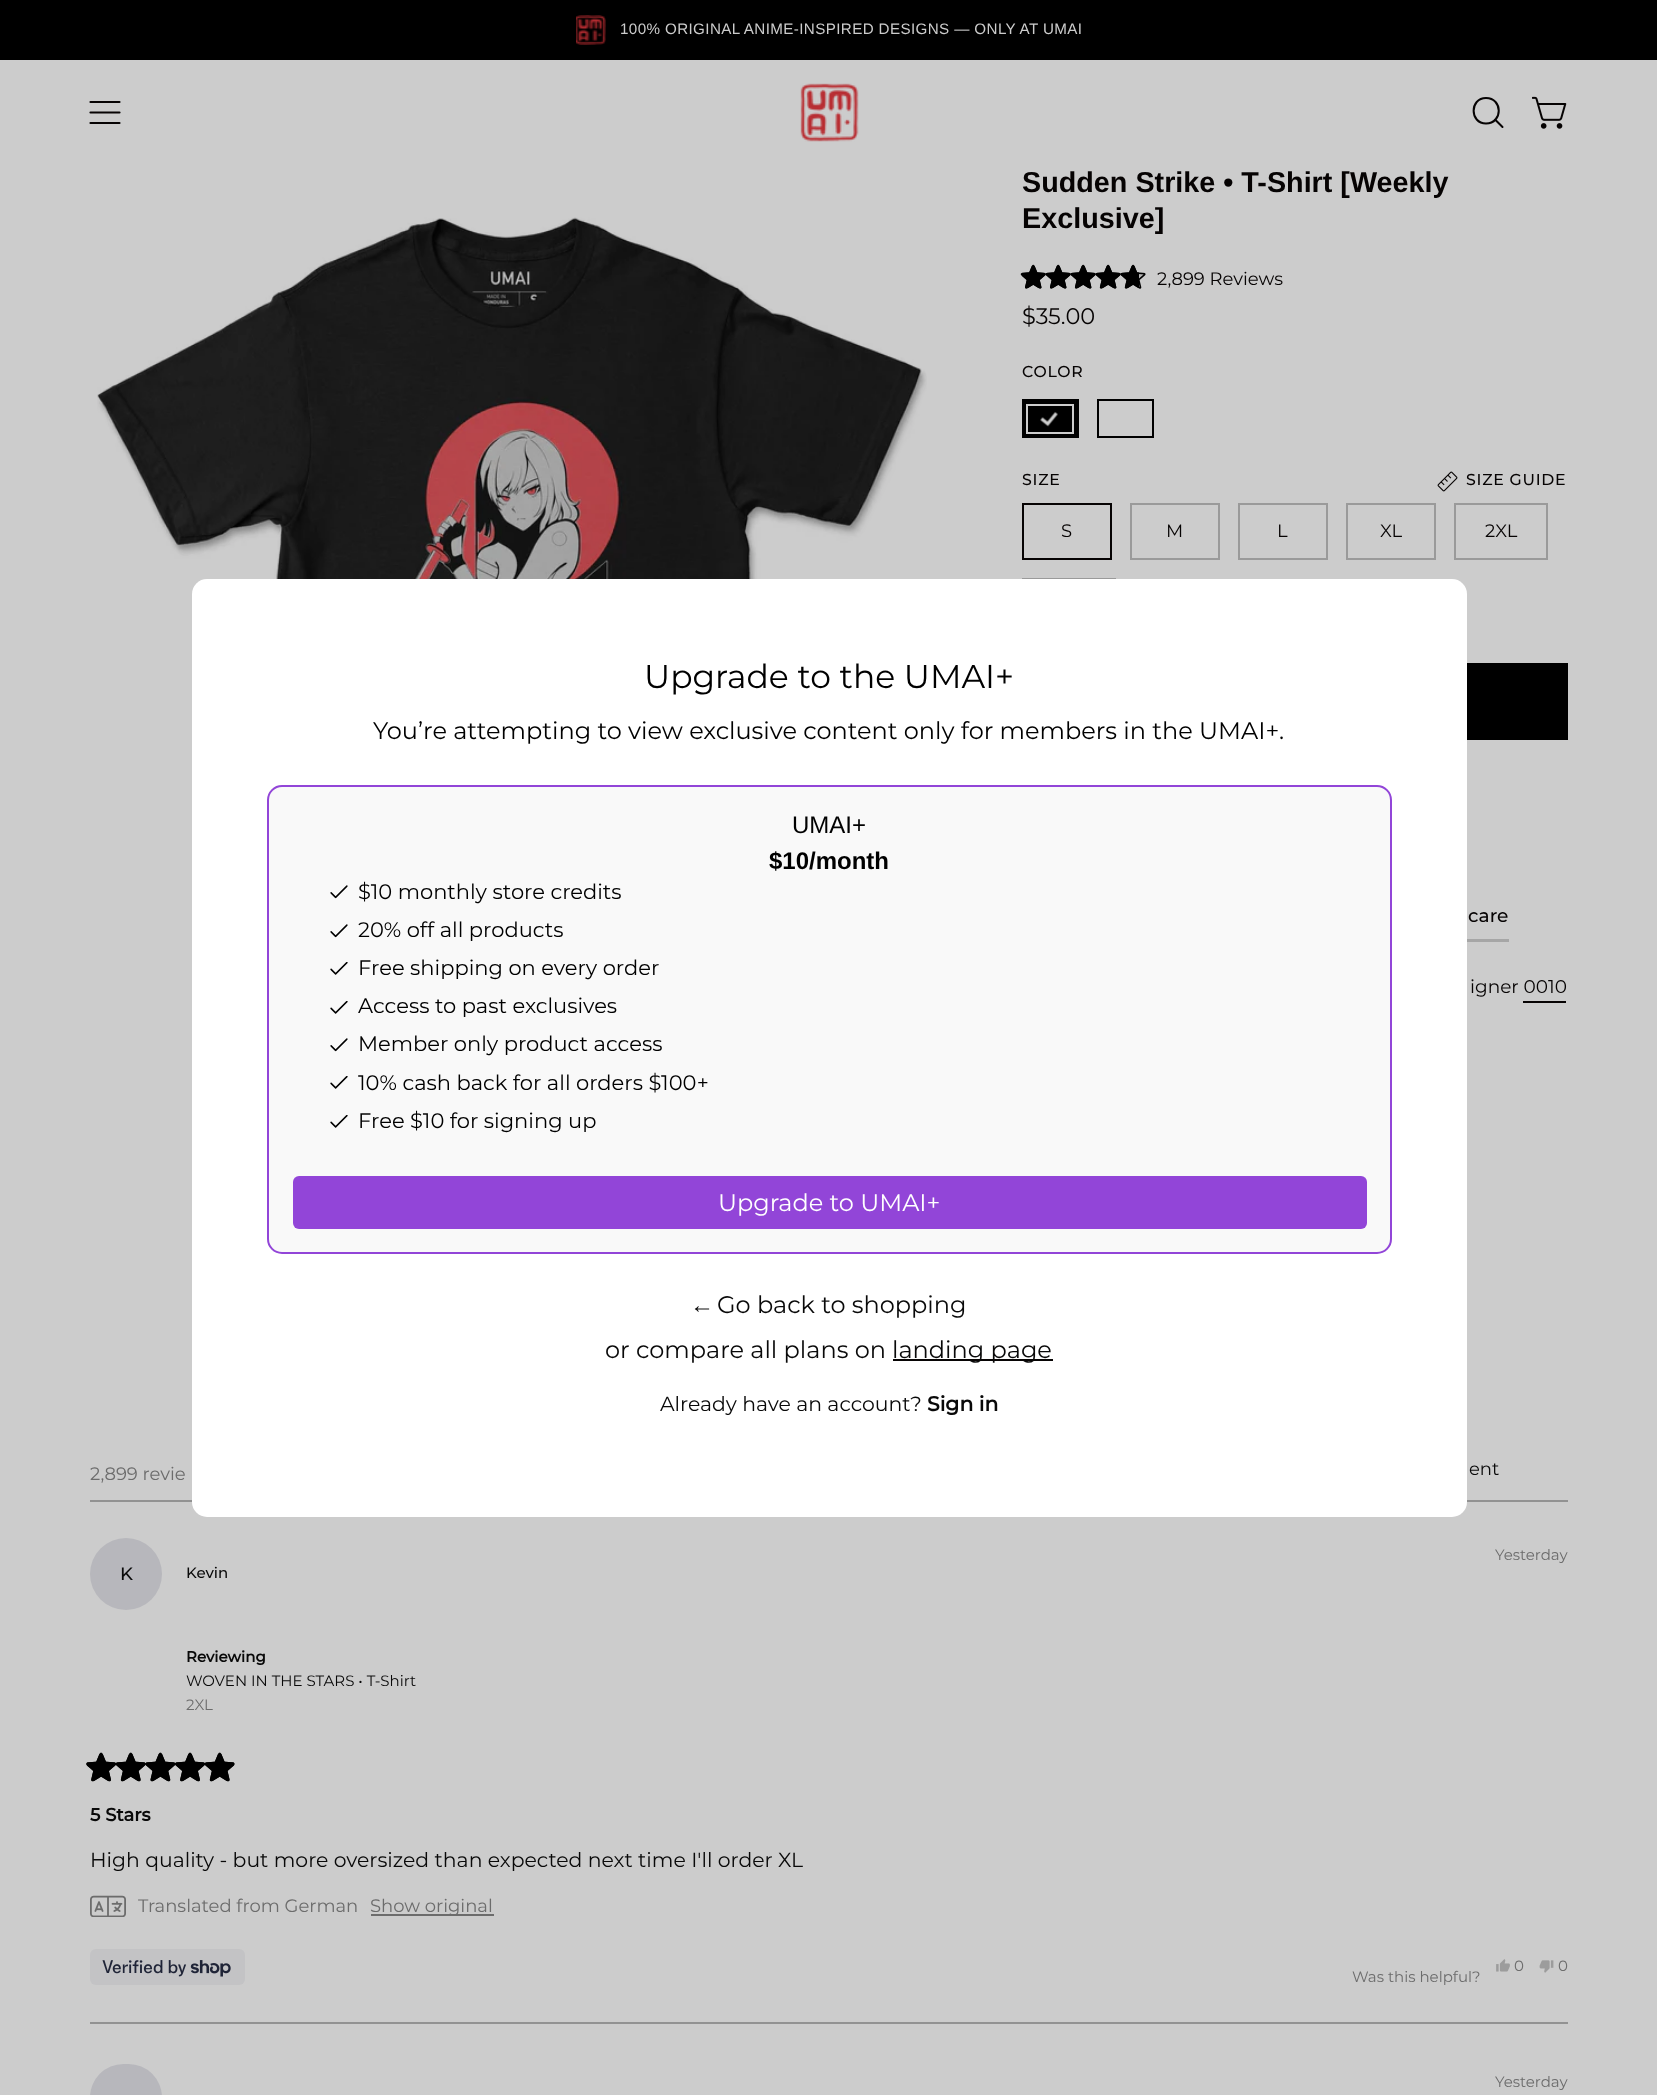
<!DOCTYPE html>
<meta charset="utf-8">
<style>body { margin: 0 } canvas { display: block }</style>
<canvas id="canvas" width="1657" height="2095"></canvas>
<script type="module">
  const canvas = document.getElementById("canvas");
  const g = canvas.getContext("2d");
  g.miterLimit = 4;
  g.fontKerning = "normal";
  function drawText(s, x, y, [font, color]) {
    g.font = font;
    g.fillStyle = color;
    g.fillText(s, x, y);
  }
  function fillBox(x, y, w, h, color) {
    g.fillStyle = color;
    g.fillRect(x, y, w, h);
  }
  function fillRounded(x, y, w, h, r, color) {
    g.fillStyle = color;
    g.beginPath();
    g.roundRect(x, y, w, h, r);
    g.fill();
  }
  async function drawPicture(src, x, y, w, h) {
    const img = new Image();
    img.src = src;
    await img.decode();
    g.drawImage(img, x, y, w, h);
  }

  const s1 = ["15.2px Liberation Sans", "#CCCCCC"];
  const s2 = ["bold 28.75px Liberation Sans", "#060303"];
  const s3 = ["18px Montserrat", "#060303"];
  const s4 = ["22.5px Montserrat", "#060303"];
  const s5 = ["500 15.75px Montserrat", "#060303"];
  const s6 = ["500 18.5px Montserrat", "#060303"];
  const s7 = ["18.5px Montserrat", "#060303"];
  const s8 = ["18px Montserrat", "#6C6C6C"];
  const s9 = ["18px Montserrat", "#090909"];
  const s10 = ["15px Montserrat", "#6C6C6C"];
  const s11 = ["500 18px Montserrat", "#090909"];
  const s12 = ["500 15px Montserrat", "#090909"];
  const s13 = ["bold 15px Montserrat", "#090909"];
  const s14 = ["15px Montserrat", "#090909"];
  const s15 = ["bold 18px Montserrat", "#090909"];
  const s16 = ["20.4px Montserrat", "#090909"];
  const s17 = ["33px Montserrat", "#000000"];
  const s18 = ["24px Montserrat", "#000000"];
  const s19 = ["24px Liberation Sans", "#000000"];
  const s20 = ["bold 24px Liberation Sans", "#000000"];
  const s21 = ["21px Montserrat", "#000000"];
  const s22 = ["24px Montserrat", "#FFFFFF"];
  const s23 = ["24px Liberation Sans", "#090909"];
  const s24 = ["24px Montserrat", "#090909"];
  const s25 = ["bold 20.4px Montserrat", "#090909"];

  fillBox(0, 0, 1657, 2095, "#CCCCCC");
  fillBox(0, 0, 1657, 60, "#000000");
  await drawPicture("pic1.png", 576, 15, 30, 30);
  g.letterSpacing = "0.38px";
  drawText("100% ORIGINAL ANIME-INSPIRED DESIGNS — ONLY AT UMAI", 620, 34, s1);
  g.beginPath();
  g.moveTo(90.5, 112.5);
  g.lineTo(119.5, 112.5);
  g.moveTo(90.5, 102);
  g.lineTo(119.5, 102);
  g.moveTo(90.5, 123);
  g.lineTo(119.5, 123);
  g.strokeStyle = "#060303";
  g.lineWidth = 2.2;
  g.lineCap = "round";
  g.lineJoin = "round";
  g.stroke();
  await drawPicture("pic2.png", 800, 83, 59, 59);
  g.beginPath();
  g.moveTo(1486, 123.5);
  g.bezierCurveTo(1503, 123.5, 1503, 98, 1486, 98);
  g.bezierCurveTo(1469.5, 98, 1469.5, 123.5, 1486, 123.5);
  g.closePath();
  g.moveTo(1495, 119.5);
  g.lineTo(1502.5, 127);
  g.lineWidth = 2;
  g.stroke();
  await drawPicture("pic3.png", 1532, 96, 35, 33);
  await drawPicture("pic4.png", 97, 217, 830, 760);
  g.letterSpacing = "0px";
  drawText("Sudden Strike • T-Shirt [Weekly", 1022, 192, s2);
  drawText("Exclusive]", 1022, 228, s2);
  await drawPicture("pic5.png", 1020, 264, 126, 25);
  await drawPicture("pic6.png", 1022, 266, 117, 22);
  drawText("2,899 Reviews", 1157, 285, s3);
  drawText("$35.00", 1022, 324, s4);
  g.letterSpacing = "0.75px";
  drawText("COLOR", 1022, 377, s5);
  fillBox(1022, 399, 57, 39, "#000000");
  await drawPicture("pic7.png", 1040, 411, 18, 16);
  g.strokeStyle = "#CCCCCC";
  g.lineJoin = "miter";
  g.strokeRect(1027, 405, 46, 28);
  g.strokeStyle = "#000000";
  g.strokeRect(1098, 400, 55, 37);
  drawText("SIZE", 1022, 485, s5);
  await drawPicture("pic8.png", 1437, 471, 21, 21);
  drawText("SIZE GUIDE", 1466, 485, s5);
  g.strokeStyle = "#060303";
  g.strokeRect(1023, 504, 88, 55);
  g.letterSpacing = "0px";
  drawText("S", 1061, 537, s3);
  g.strokeStyle = "#9A9A9A";
  g.strokeRect(1131, 504, 88, 55);
  drawText("M", 1166, 537, s3);
  g.strokeRect(1239, 504, 88, 55);
  drawText("L", 1277, 537, s3);
  g.strokeRect(1347, 504, 88, 55);
  drawText("XL", 1380, 537, s3);
  g.strokeRect(1455, 504, 92, 55);
  drawText("2XL", 1485, 537, s3);
  g.strokeRect(1023, 579, 92, 53);
  fillBox(1467, 663, 101, 77, "#000000");
  fillBox(1467, 939, 42, 3, "#A6A6A6");
  drawText("care", 1468, 922, s6);
  drawText("igner 0010", 1470, 993, s7);
  fillBox(1523, 1001, 43, 2, "#060303");
  drawText("2,899 revie", 90, 1480, s8);
  drawText("ent", 1469, 1475, s9);
  fillBox(90, 1500, 1478, 2, "#929292");
  fillBox(90, 2022, 1478, 2, "#929292");
  drawText("Yesterday", 1495, 1560, s10);
  g.fillStyle = "#B7B7BC";
  g.beginPath();
  g.arc(126, 1574, 36, 0, Math.PI * 2);
  g.fill();
  drawText("K", 120, 1580, s11);
  drawText("Kevin", 186, 1578, s12);
  drawText("Reviewing", 186, 1662, s13);
  drawText("WOVEN IN THE STARS • T-Shirt", 186, 1686, s14);
  drawText("2XL", 186, 1710, s10);
  await drawPicture("pic9.png", 86, 1752, 149, 30);
  await drawPicture("pic10.png", 87, 1754, 147, 27);
  drawText("5 Stars", 90, 1821, s15);
  drawText("High quality - but more oversized than expected next time I'll order XL", 90, 1867, s16);
  await drawPicture("pic11.png", 90, 1895, 36, 22);
  drawText("Translated from German", 138, 1912, s8);
  fillBox(371, 1914, 123, 2, "#6C6C6C");
  drawText("Show original", 370, 1912, s8);
  fillRounded(90, 1949, 155, 36, 6, "#C3C3C5");
  await drawPicture("pic12.png", 102, 1960, 129, 17);
  await drawPicture("pic13.png", 1496, 1959, 14, 13);
  drawText("0", 1514, 1971, s10);
  await drawPicture("pic14.png", 1539, 1960, 15, 13);
  drawText("0", 1558, 1971, s10);
  drawText("Was this helpful?", 1352, 1982, s10);
  fillRounded(90, 2064, 72, 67, 36, "#B7B7BC");
  drawText("Yesterday", 1495, 2087, s10);
  fillRounded(192, 579, 1275, 938, 15, "#FFFFFF");
  drawText("Upgrade to the UMAI+", 644, 688, s17);
  drawText("You’re attempting to view exclusive content only for members in the UMAI+.", 373, 739, s18);
  g.fillStyle = "#F9F9F9";
  g.beginPath();
  g.roundRect(268, 786, 1123, 467, 14);
  g.fill();
  g.strokeStyle = "#9245D8";
  g.stroke();
  drawText("UMAI+", 792, 833, s19);
  drawText("$10/month", 769, 869, s20);
  await drawPicture("pic15.png", 330, 885, 18, 14);
  drawText("$10 monthly store credits", 358, 899, s21);
  await drawPicture("pic15.png", 330, 924, 18, 14);
  drawText("20% off all products", 358, 937, s21);
  await drawPicture("pic16.png", 330, 962, 18, 13);
  drawText("Free shipping on every order", 358, 975, s21);
  await drawPicture("pic16.png", 330, 1001, 18, 13);
  drawText("Access to past exclusives", 358, 1013, s21);
  await drawPicture("pic15.png", 330, 1038, 18, 14);
  drawText("Member only product access", 358, 1051, s21);
  await drawPicture("pic16.png", 330, 1076, 18, 13);
  drawText("10% cash back for all orders $100+", 358, 1090, s21);
  await drawPicture("pic16.png", 330, 1115, 18, 13);
  drawText("Free $10 for signing up", 358, 1128, s21);
  fillRounded(293, 1176, 1074, 53, 6, "#9245D8");
  drawText("Upgrade to UMAI+", 718, 1211, s22);
  drawText("←", 690, 1313, s23);
  drawText("Go back to shopping", 717, 1313, s24);
  drawText("or compare all plans on", 605, 1358, s24);
  fillBox(893, 1359, 160, 2, "#070404");
  drawText("landing page", 892, 1358, s24);
  drawText("Already have an account?", 660, 1411, s16);
  drawText("Sign in", 927, 1411, s25);
</script>
